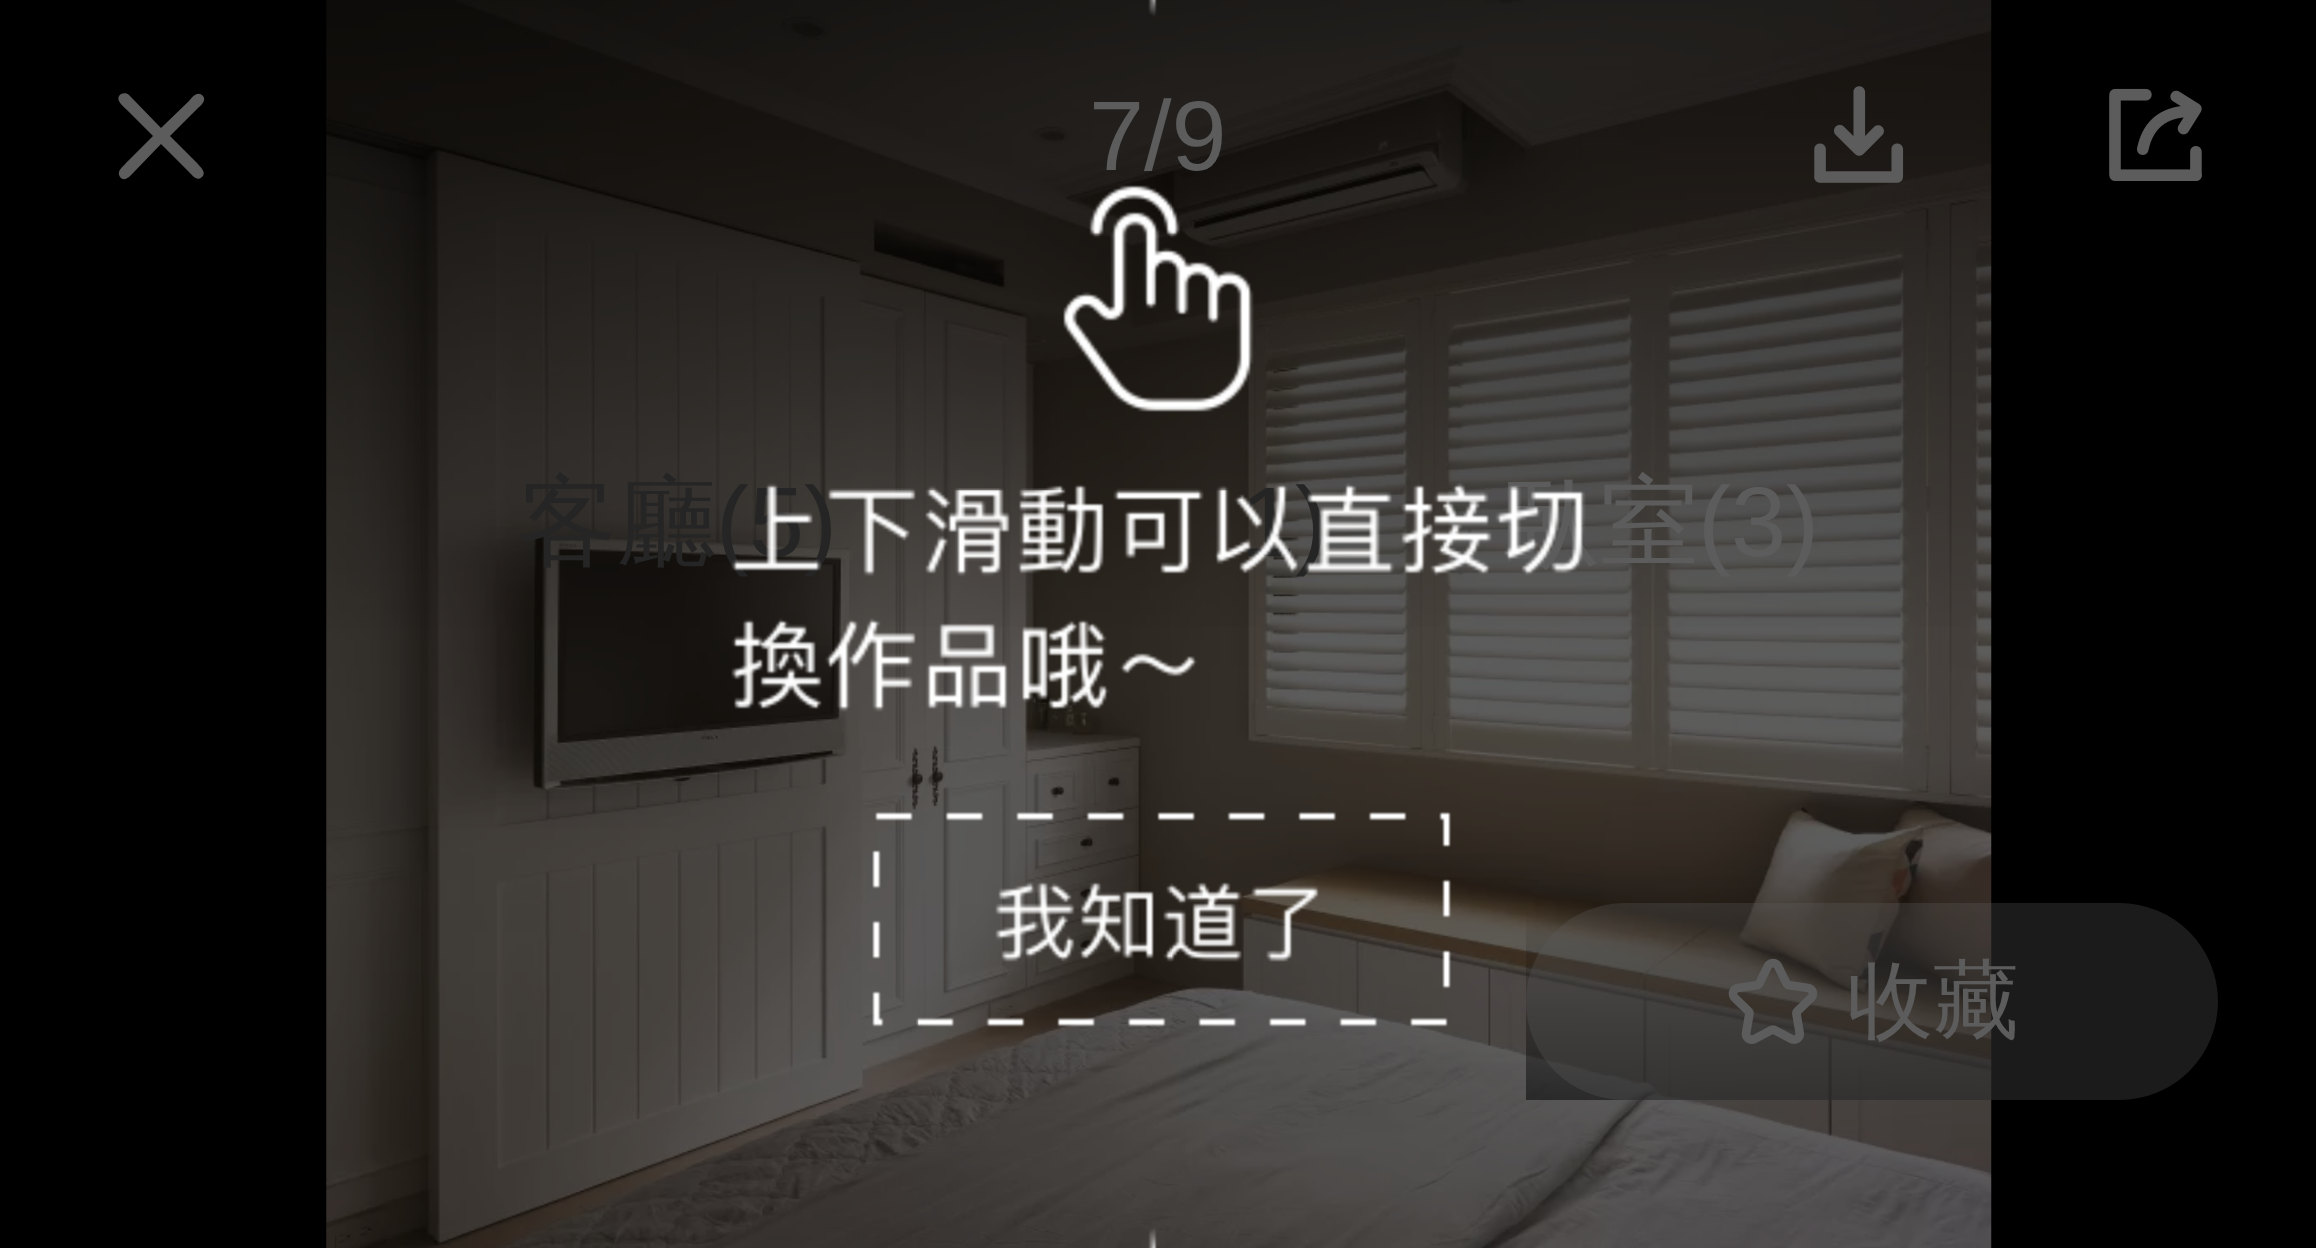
<!DOCTYPE html>
<meta charset="utf-8">
<style>body { margin: 0 } canvas { display: block }</style>
<canvas id="canvas" width="2316" height="1248"></canvas>
<script type="module">
  const canvas = document.getElementById("canvas");
  const g = canvas.getContext("2d");
  g.miterLimit = 4;
  g.fontKerning = "normal";
  function drawText(s, x, y, [font, color]) {
    g.font = font;
    g.fillStyle = color;
    g.fillText(s, x, y);
  }
  function fillBox(x, y, w, h, color) {
    g.fillStyle = color;
    g.fillRect(x, y, w, h);
  }
  function fillRounded(x, y, w, h, r, color) {
    g.fillStyle = color;
    g.beginPath();
    g.roundRect(x, y, w, h, r);
    g.fill();
  }
  async function drawPicture(src, x, y, w, h) {
    const img = new Image();
    img.src = src;
    await img.decode();
    g.drawImage(img, x, y, w, h);
  }
  let gradient;

  const s1 = ["99px Liberation Sans", "#FFFFFF"];
  const s2 = ["500 99px WenQuanYi Zen Hei", "#666666"];
  const s3 = ["99px Liberation Sans", "#666666"];
  const s4 = ["500 99px WenQuanYi Zen Hei", "#FFFFFF"];
  const s5 = ["500 86px WenQuanYi Zen Hei", "#FFFFFF"];

  fillBox(0, 0, 2316, 1248, "#000000");
  await drawPicture("pic2.png", 326, 0, 1666, 1248);
  gradient = g.createLinearGradient(1158, 0, 1158, 655);
  gradient.addColorStop(0, "rgba(0, 0, 0, 0.5)");
  gradient.addColorStop(1, "rgba(0, 0, 0, 0)");
  g.fillStyle = gradient;
  g.fillRect(326, 0, 1666, 627);
  g.fillStyle = "#FFFFFF";
  g.beginPath();
  g.moveTo(129, 95);
  g.lineTo(161, 128);
  g.lineTo(189, 101);
  g.bezierCurveTo(192, 97, 198, 90, 203, 96);
  g.bezierCurveTo(207, 101, 200, 106, 197, 109);
  g.lineTo(170, 136);
  g.lineTo(197, 163);
  g.bezierCurveTo(200, 167, 207, 172, 202, 177);
  g.bezierCurveTo(197, 182, 192, 175, 189, 172);
  g.lineTo(161, 144);
  g.lineTo(134, 172);
  g.bezierCurveTo(131, 175, 125, 183, 120, 177);
  g.bezierCurveTo(116, 171, 123, 167, 126, 163);
  g.lineTo(153, 136);
  g.lineTo(126, 109);
  g.bezierCurveTo(123, 106, 114, 99, 121, 94);
  g.bezierCurveTo(124, 93, 127, 93, 129, 95);
  g.closePath();
  g.fill();
  drawText("7/9", 1089, 170, s1);
  await drawPicture("pic3.png", 1814, 86, 90, 97);
  await drawPicture("pic4.png", 2109, 88, 93, 93);
  drawText("客廳", 518, 556, s2);
  drawText("(5)", 716, 556, s3);
  drawText("1)", 1240, 556, s3);
  drawText("臥室", 1501, 556, s4);
  drawText("(3)", 1698, 556, s1);
  gradient = g.createLinearGradient(1872, 1100, 1872, 903);
  gradient.addColorStop(0, "rgba(0, 0, 0, 0.5)");
  gradient.addColorStop(1, "rgba(0, 0, 0, 0)");
  g.fillStyle = gradient;
  g.fillRect(1526, 911, 466, 189);
  fillRounded(1526, 903, 692, 197, 98.5, "rgba(255, 255, 255, 0.3)");
  await drawPicture("pic5.png", 1728, 958, 90, 86);
  drawText("收藏", 1847, 1030, s5);
  fillBox(118, 0, 2100, 1248, "rgba(0, 0, 0, 0.64)");
  await drawPicture("pic1.png", 731, 0, 855, 1248);
</script>
